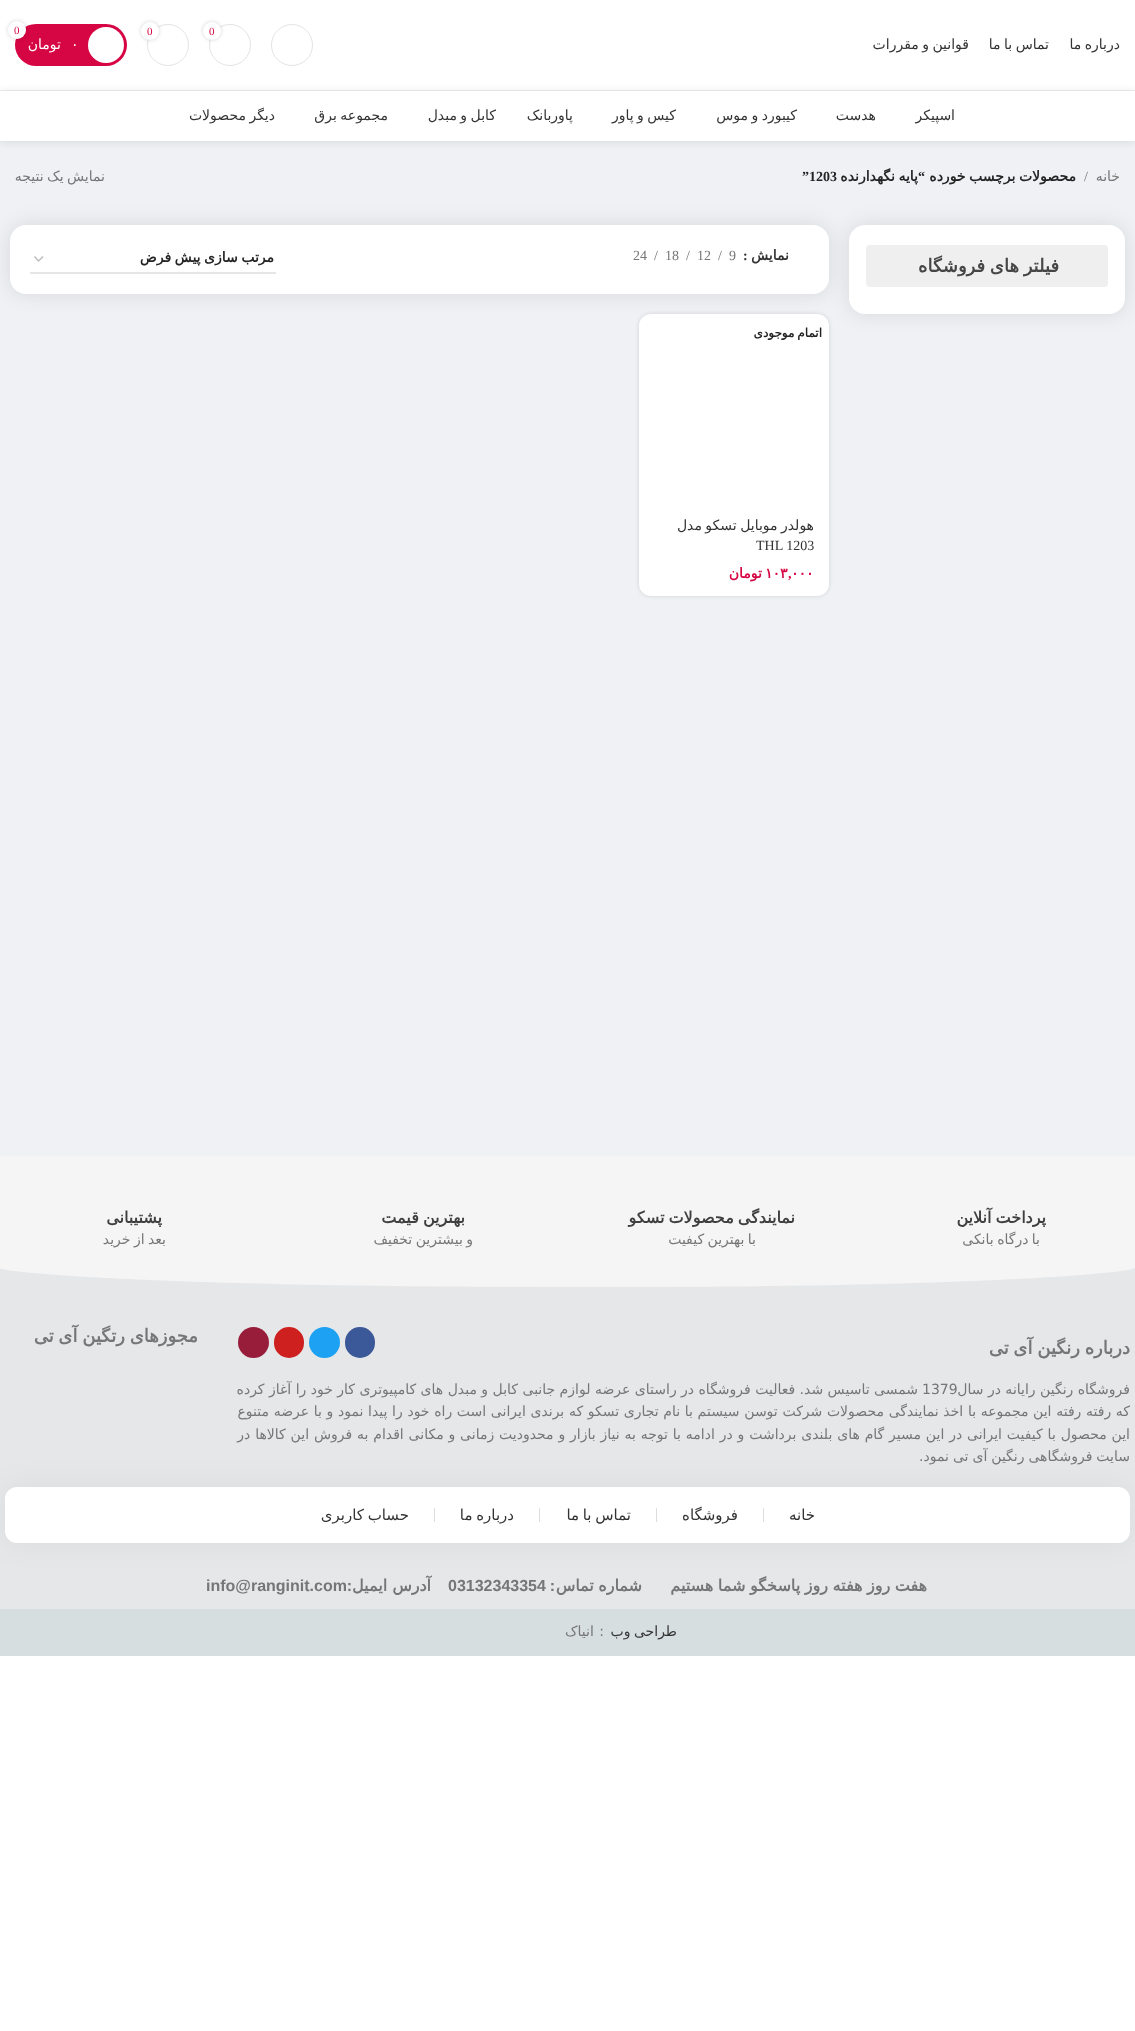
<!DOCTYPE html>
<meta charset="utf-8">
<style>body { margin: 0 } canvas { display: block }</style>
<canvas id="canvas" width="1135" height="2031"></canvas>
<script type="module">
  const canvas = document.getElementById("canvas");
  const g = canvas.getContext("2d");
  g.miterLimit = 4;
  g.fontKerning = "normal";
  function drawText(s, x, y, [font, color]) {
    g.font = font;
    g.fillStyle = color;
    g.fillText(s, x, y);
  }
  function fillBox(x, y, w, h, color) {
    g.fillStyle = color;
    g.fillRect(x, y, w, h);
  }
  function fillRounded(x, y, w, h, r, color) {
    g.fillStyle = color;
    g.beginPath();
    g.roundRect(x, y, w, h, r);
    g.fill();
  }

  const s1 = ["14px DejaVu Sans", "#333333"];
  const s2 = ["11px Liberation Serif", "#D60644"];
  const s3 = ["14px DejaVu Sans", "#FFFFFF"];
  const s4 = ["14px DejaVu Sans", "#767676"];
  const s5 = ["14px Liberation Serif", "#767676"];
  const s6 = ["bold 14px DejaVu Sans", "#242424"];
  const s7 = ["bold 14px Liberation Serif", "#242424"];
  const s8 = ["bold 18px DejaVu Sans", "#464646"];
  const s9 = ["bold 14px DejaVu Sans", "#333333"];
  const s10 = ["bold 14px Liberation Serif", "#333333"];
  const s11 = ["bold 12px DejaVu Sans", "#242424"];
  const s12 = ["14px Liberation Serif", "#333333"];
  const s13 = ["bold 14px DejaVu Sans", "#D60644"];
  const s14 = ["bold 14px Liberation Serif", "#D60644"];
  const s15 = ["bold 16px DejaVu Sans", "#3F3F3F"];
  const s16 = ["bold 18px DejaVu Sans", "#767676"];
  const s17 = ["15px DejaVu Sans", "#333333"];
  const s18 = ["bold 16px DejaVu Sans", "#767676"];
  const s19 = ["bold 16px Liberation Sans", "#767676"];

  fillBox(0, 0, 1135, 2031, "#FFFFFF");
  fillBox(0, 90, 1135, 1, "#EEEEEE");
  g.wordSpacing = "-1px";
  g.direction = "rtl";
  drawText("درباره ما", 1120, 49, s1);
  drawText("تماس با ما", 1049, 49, s1);
  drawText("قوانین و مقررات", 969, 49, s1);
  g.beginPath();
  g.arc(292, 45, 20.5, 0, Math.PI * 2);
  g.strokeStyle = "#E4E4E4";
  g.stroke();
  g.beginPath();
  g.arc(230, 45, 20.5, 0, Math.PI * 2);
  g.stroke();
  g.fillStyle = "rgba(0, 0, 0, 0.17)";
  g.filter = "blur(2px)";
  g.beginPath();
  g.roundRect(203, 22, 18, 18, 9);
  g.fill();
  g.filter = "none";
  g.fillStyle = "#FFFFFF";
  g.beginPath();
  g.arc(212, 31, 9, 0, Math.PI * 2);
  g.fill();
  g.wordSpacing = "0px";
  g.direction = "ltr";
  drawText("0", 209, 35, s2);
  g.beginPath();
  g.arc(168, 45, 20.5, 0, Math.PI * 2);
  g.stroke();
  g.fillStyle = "rgba(0, 0, 0, 0.17)";
  g.filter = "blur(2px)";
  g.beginPath();
  g.roundRect(141, 22, 18, 18, 9);
  g.fill();
  g.filter = "none";
  g.fillStyle = "#FFFFFF";
  g.beginPath();
  g.arc(150, 31, 9, 0, Math.PI * 2);
  g.fill();
  drawText("0", 147, 35, s2);
  fillRounded(15, 24, 112, 42, 21, "#D60644");
  g.fillStyle = "#FFFFFF";
  g.beginPath();
  g.arc(106, 45, 18, 0, Math.PI * 2);
  g.fill();
  g.fillStyle = "rgba(0, 0, 0, 0.17)";
  g.filter = "blur(2px)";
  g.beginPath();
  g.roundRect(8, 21, 18, 18, 9);
  g.fill();
  g.filter = "none";
  g.fillStyle = "#FFFFFF";
  g.beginPath();
  g.arc(17, 30, 9, 0, Math.PI * 2);
  g.fill();
  drawText("0", 14, 34, s2);
  drawText("۰", 71, 49, s3);
  g.direction = "rtl";
  drawText("تومان", 61, 49, s3);
  fillBox(0, 141, 1135, 1015, "#EFF1F5");
  g.save();
  g.beginPath();
  g.moveTo(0, 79);
  g.lineTo(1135, 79);
  g.lineTo(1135, 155);
  g.lineTo(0, 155);
  g.closePath();
  g.moveTo(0, 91);
  g.lineTo(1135, 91);
  g.lineTo(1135, 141);
  g.lineTo(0, 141);
  g.closePath();
  g.clip("evenodd");
  g.fillStyle = "rgba(0, 0, 0, 0.1)";
  g.filter = "blur(4px)";
  g.beginPath();
  g.rect(0, 92, 1135, 50);
  g.fill();
  g.filter = "none";
  g.restore();
  drawText("اسپیکر", 955, 120, s1);
  drawText("هدست", 876, 120, s1);
  g.wordSpacing = "-1px";
  drawText("کیبورد و موس", 797, 120, s1);
  drawText("کیس و پاور", 676, 120, s1);
  g.wordSpacing = "0px";
  drawText("پاوربانک", 573, 120, s1);
  g.wordSpacing = "-1px";
  drawText("کابل و مبدل", 496, 120, s1);
  drawText("مجموعه برق", 388, 120, s1);
  drawText("دیگر محصولات", 275, 120, s1);
  g.wordSpacing = "0px";
  drawText("خانه", 1120, 181, s4);
  g.direction = "ltr";
  drawText("/", 1084, 181, s5);
  g.wordSpacing = "-1px";
  g.direction = "rtl";
  drawText("محصولات برچسب خورده", 1076, 181, s6);
  g.wordSpacing = "0px";
  drawText("“", 925, 181, s7);
  g.wordSpacing = "-1px";
  drawText("پایه نگهدارنده", 918, 181, s6);
  g.wordSpacing = "0px";
  g.direction = "ltr";
  drawText("”1203", 802, 181, s7);
  g.wordSpacing = "-1px";
  g.direction = "rtl";
  drawText("نمایش یک نتیجه", 105, 181, s4);
  g.fillStyle = "rgba(0, 0, 0, 0.1)";
  g.filter = "blur(10px)";
  g.beginPath();
  g.roundRect(849, 225, 276, 89, 16);
  g.fill();
  g.filter = "none";
  fillRounded(849, 225, 276, 89, 16, "#FFFFFF");
  fillRounded(866, 245, 242, 42, 4, "#EFEFEF");
  drawText("فیلتر های فروشگاه", 1059, 272, s8);
  g.fillStyle = "rgba(0, 0, 0, 0.1)";
  g.filter = "blur(10px)";
  g.beginPath();
  g.roundRect(10, 225, 819, 69, 16);
  g.fill();
  g.filter = "none";
  fillRounded(10, 225, 819, 69, 16, "#FFFFFF");
  g.wordSpacing = "0px";
  drawText("نمایش", 789, 260, s9);
  g.direction = "ltr";
  drawText(":", 743, 260, s10);
  drawText("9", 729, 260, s5);
  drawText("/", 718, 260, s5);
  drawText("12", 697, 260, s5);
  drawText("/", 686, 260, s5);
  drawText("18", 665, 260, s5);
  drawText("/", 654, 260, s5);
  drawText("24", 633, 260, s5);
  g.beginPath();
  g.moveTo(34.5, 256.5);
  g.lineTo(38.5, 261);
  g.lineTo(43, 256.5);
  g.strokeStyle = "#BBBBBB";
  g.lineWidth = 1.4;
  g.stroke();
  fillBox(30, 272, 246, 2, "#E6E6E6");
  g.save();
  g.beginPath();
  g.rect(50, 250, 224, 17);
  g.clip();
  g.wordSpacing = "-1px";
  g.direction = "rtl";
  drawText("مرتب سازی پیش فرض", 274, 262, s6);
  g.restore();
  g.fillStyle = "rgba(0, 0, 0, 0.12)";
  g.filter = "blur(2px)";
  g.beginPath();
  g.roundRect(639, 314, 190, 282, 12);
  g.fill();
  g.filter = "none";
  fillRounded(639, 314, 190, 282, 12, "#FFFFFF");
  g.wordSpacing = "-1px";
  g.direction = "rtl";
  drawText("اتمام موجودی", 822, 337, s11);
  drawText("هولدر موبایل تسکو مدل", 814, 530, s1);
  g.wordSpacing = "0px";
  g.direction = "ltr";
  drawText("THL 1203", 756, 550, s12);
  drawText("۰۰۰", 791, 578, s13);
  drawText("۱۰۳", 765, 578, s13);
  g.direction = "rtl";
  drawText("تومان", 762, 578, s13);
  g.direction = "ltr";
  drawText(",", 788, 578, s14);
  fillBox(0, 1157, 1135, 130, "#F5F5F5");
  g.beginPath();
  g.moveTo(1135, 1157);
  g.lineTo(1135, 1156);
  g.lineTo(-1, 1156);
  g.lineTo(-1, 1157);
  g.bezierCurveTo(0, 1161, 143, 1176, 567, 1176);
  g.bezierCurveTo(991, 1176, 1135, 1161, 1135, 1157);
  g.closePath();
  g.fill();
  g.wordSpacing = "-1px";
  g.direction = "rtl";
  drawText("پرداخت آنلاین", 1046, 1223, s15);
  drawText("با درگاه بانکی", 1040, 1244, s4);
  drawText("نمایندگی محصولات تسکو", 795, 1223, s15);
  drawText("با بهترین کیفیت", 756, 1244, s4);
  drawText("بهترین قیمت", 465, 1223, s15);
  drawText("و بیشترین تخفیف", 473, 1244, s4);
  g.wordSpacing = "0px";
  drawText("پشتیبانی", 162, 1223, s15);
  g.wordSpacing = "-1px";
  drawText("بعد از خرید", 166, 1244, s4);
  g.fillStyle = "#E5E7E9";
  g.beginPath();
  g.moveTo(567, 1287);
  g.bezierCurveTo(143, 1287, 0, 1272, -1, 1268);
  g.lineTo(-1, 1288);
  g.lineTo(1135, 1288);
  g.lineTo(1135, 1268);
  g.bezierCurveTo(1135, 1272, 991, 1288, 567, 1287);
  g.closePath();
  g.fill();
  fillBox(0, 1288, 1135, 321, "#E5E7E9");
  drawText("درباره رنگین آی تی", 1130, 1354, s16);
  fillRounded(345, 1327, 30, 31, 15, "#3B5998");
  g.fillStyle = "#1DA1F2";
  g.beginPath();
  g.arc(324.5, 1342.5, 15.5, 0, Math.PI * 2);
  g.fill();
  fillRounded(274, 1327, 30, 31, 15, "#CD201F");
  g.fillStyle = "#971D3B";
  g.beginPath();
  g.arc(253.5, 1342.5, 15.5, 0, Math.PI * 2);
  g.fill();
  g.wordSpacing = "0px";
  drawText("فروشگاه رنگین رایانه در سال", 1130, 1394, s4);
  g.direction = "ltr";
  drawText("1379", 922, 1394, s4);
  g.direction = "rtl";
  drawText("شمسی تاسیس شد. فعالیت فروشگاه در راستای عرضه لوازم جانبی کابل و مبدل های کامپیوتری کار خود را آغاز کرده", 918, 1394, s4);
  g.wordSpacing = "0.2px";
  drawText("که رفته رفته این مجموعه با اخذ نمایندگی محصولات شرکت توسن سیستم با نام تجاری تسکو که برندی ایرانی است راه خود را پیدا نمود و با عرضه متنوع", 1130, 1416, s4);
  g.wordSpacing = "0.4px";
  drawText("این محصول با کیفیت ایرانی در این مسیر گام های بلندی برداشت و در ادامه با توجه به نیاز بازار و محدودیت زمانی و مکانی اقدام به فروش این کالاها در", 1130, 1439, s4);
  g.wordSpacing = "-0.5px";
  drawText("سایت فروشگاهی رنگین آی تی نمود.", 1130, 1461, s4);
  g.wordSpacing = "-1px";
  drawText("مجوزهای رتگین آی تی", 198, 1342, s16);
  g.fillStyle = "rgba(0, 0, 0, 0.05)";
  g.filter = "blur(15px)";
  g.beginPath();
  g.roundRect(5, 1487, 1125, 56, 12);
  g.fill();
  g.filter = "none";
  fillRounded(5, 1487, 1125, 56, 12, "#FFFFFF");
  g.wordSpacing = "0px";
  drawText("خانه", 815, 1520, s17);
  fillBox(763, 1508, 1, 14, "#DDDDDD");
  drawText("فروشگاه", 738, 1520, s17);
  fillBox(656, 1508, 1, 14, "#DDDDDD");
  g.wordSpacing = "-1px";
  drawText("تماس با ما", 631, 1520, s17);
  fillBox(539, 1508, 1, 14, "#DDDDDD");
  drawText("درباره ما", 514, 1520, s17);
  fillBox(434, 1508, 1, 14, "#DDDDDD");
  drawText("حساب کاربری", 409, 1520, s17);
  g.wordSpacing = "-0.5px";
  drawText("هفت روز هفته روز پاسخگو شما هستیم", 927, 1591, s18);
  drawText("شماره تماس", 642, 1591, s18);
  g.wordSpacing = "0px";
  drawText(":", 555, 1591, s19);
  g.direction = "ltr";
  drawText("03132343354", 448, 1591, s19);
  g.direction = "rtl";
  drawText("آدرس ایمیل", 431, 1591, s18);
  drawText(":", 352, 1591, s19);
  g.direction = "ltr";
  drawText("info@ranginit.com", 206, 1591, s19);
  fillBox(0, 1609, 1135, 47, "#D7DEE0");
  g.wordSpacing = "-1px";
  g.direction = "rtl";
  drawText("طراحی وب", 677, 1636, s1);
  g.wordSpacing = "1px";
  drawText(": انیاک", 604, 1636, s4);
</script>
